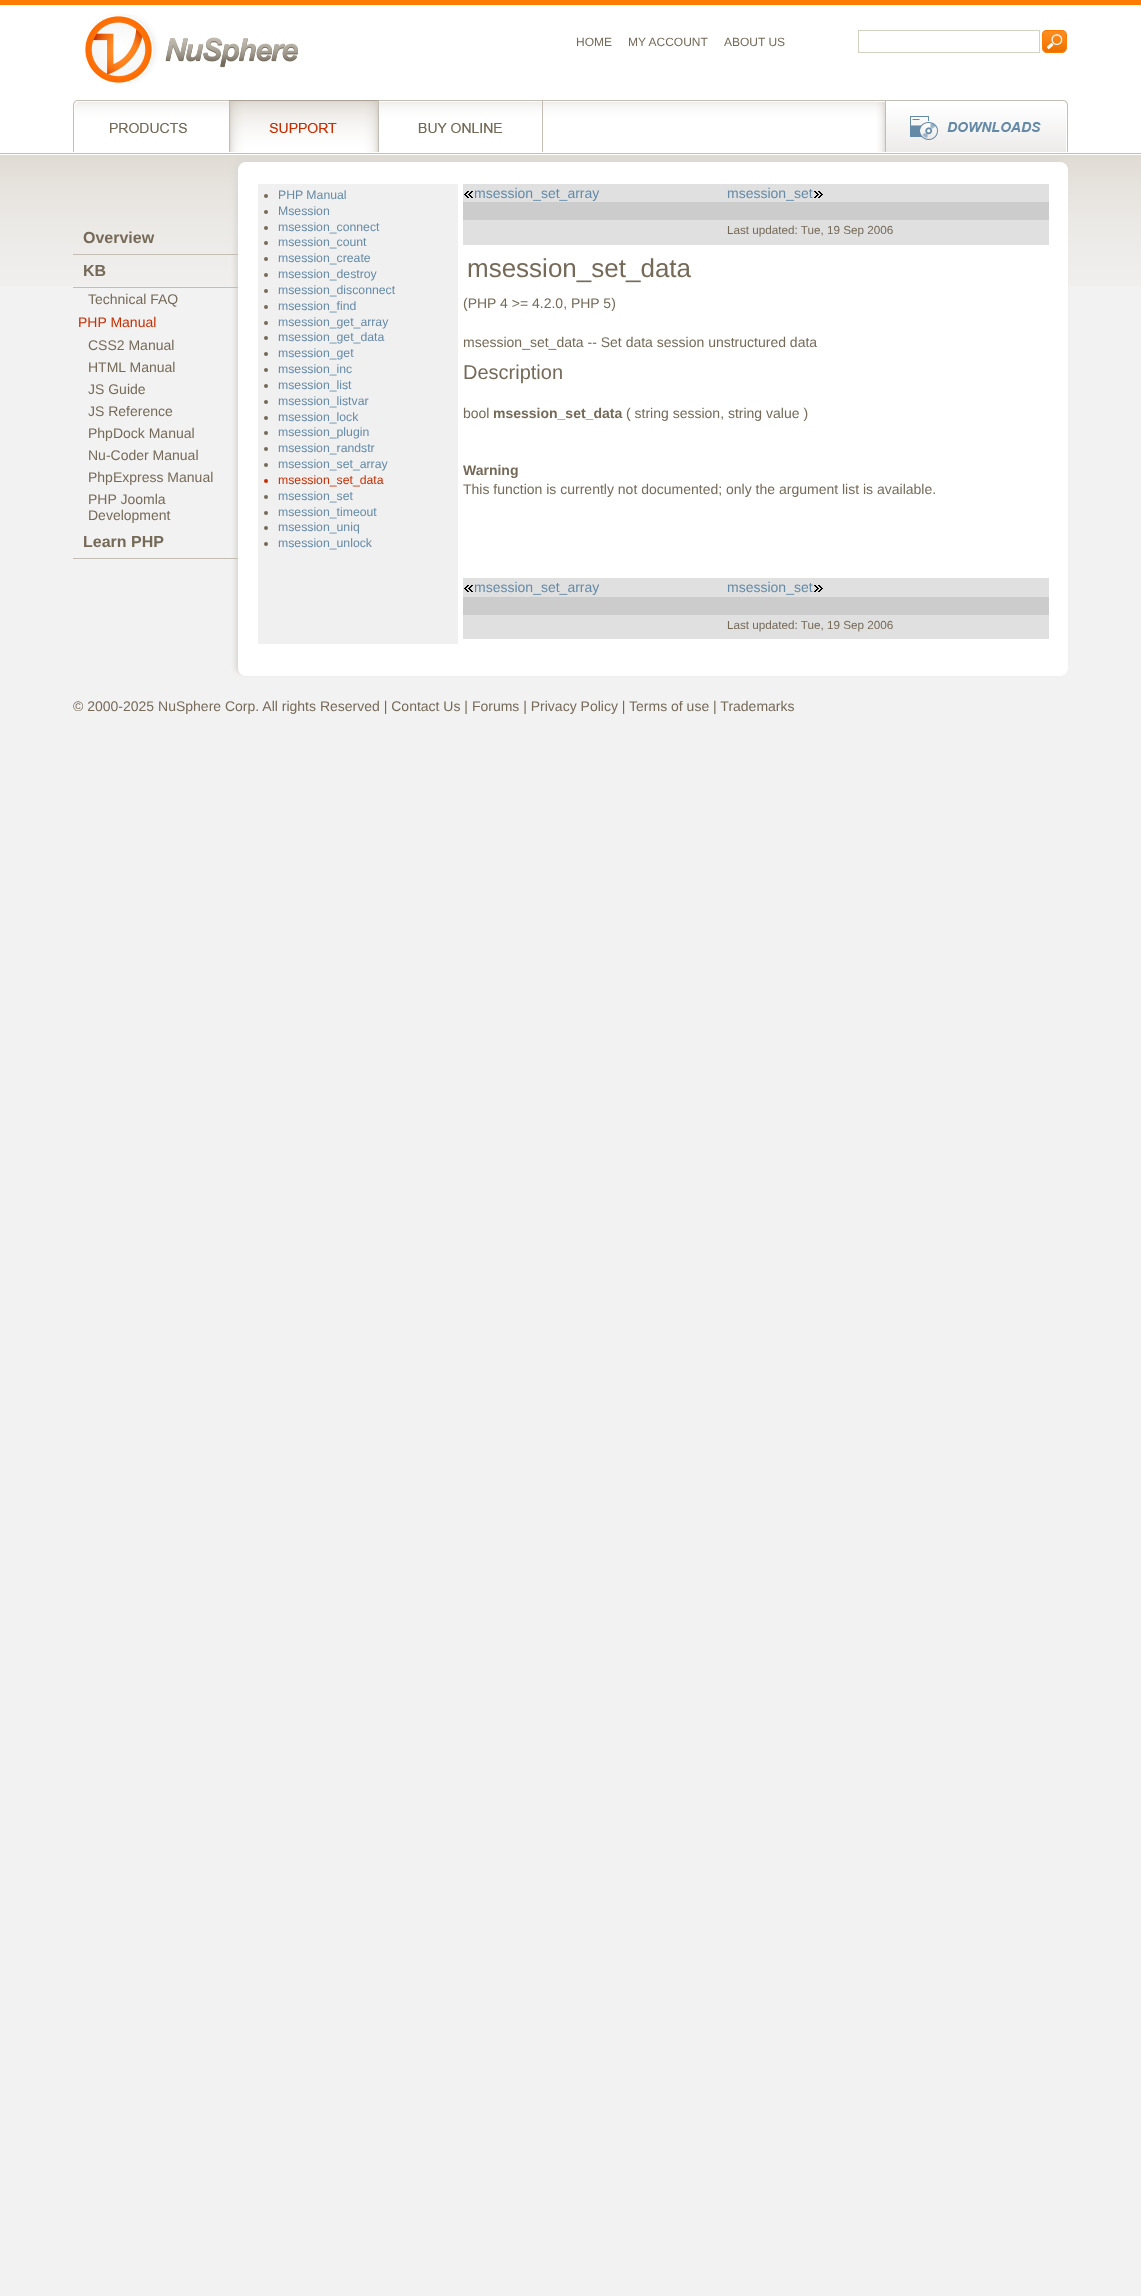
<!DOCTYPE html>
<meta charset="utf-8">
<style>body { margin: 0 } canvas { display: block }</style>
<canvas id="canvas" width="1141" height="2296"></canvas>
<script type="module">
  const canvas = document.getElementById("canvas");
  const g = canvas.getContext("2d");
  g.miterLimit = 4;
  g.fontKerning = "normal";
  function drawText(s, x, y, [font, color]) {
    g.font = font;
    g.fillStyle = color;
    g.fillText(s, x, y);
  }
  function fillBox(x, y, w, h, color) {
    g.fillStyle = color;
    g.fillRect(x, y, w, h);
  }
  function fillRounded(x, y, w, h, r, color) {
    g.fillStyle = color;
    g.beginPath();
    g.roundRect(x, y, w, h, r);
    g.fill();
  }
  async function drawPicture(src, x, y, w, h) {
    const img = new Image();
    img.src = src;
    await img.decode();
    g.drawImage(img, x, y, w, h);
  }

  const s1 = ["12px Liberation Sans", "#756A58"];
  const s2 = ["bold 16px Liberation Sans", "#756A58"];
  const s3 = ["14px Liberation Sans", "#756A58"];
  const s4 = ["14px Liberation Sans", "#C72E00"];
  const s5 = ["12.25px Liberation Sans", "#648AA7"];
  const s6 = ["12.25px Liberation Sans", "#C72E00"];
  const s7 = ["14px Liberation Sans", "#648AA7"];
  const s8 = ["11.7px Liberation Sans", "#756A58"];
  const s9 = ["26px Liberation Sans", "#756A58"];
  const s10 = ["20px Liberation Sans", "#756A58"];
  const s11 = ["bold 14px Liberation Sans", "#756A58"];

  fillBox(0, 0, 1141, 2296, "#F3F2F2");
  await drawPicture("pic1.png", 0, 0, 1141, 286);
  await drawPicture("pic2.png", 85, 14, 213, 70);
  drawText("HOME", 576, 46, s1);
  drawText("MY ACCOUNT", 628, 46, s1);
  drawText("ABOUT US", 724, 46, s1);
  g.strokeStyle = "#D1D2C2";
  g.strokeRect(858.5, 30.5, 181, 22);
  await drawPicture("pic3.png", 1042, 30, 25, 23);
  await drawPicture("pic4.png", 73, 100, 995, 52);
  await drawPicture("pic5.png", 229, 100, 149, 52);
  g.fillStyle = "#DAD9D6";
  g.filter = "blur(2px)";
  g.beginPath();
  g.roundRect(235, 160, 830, 514, 8);
  g.fill();
  g.filter = "none";
  fillBox(73, 254, 165, 1, "#C3BDB3");
  drawText("Overview", 83, 243, s2);
  fillBox(73, 287, 165, 1, "#C3BDB3");
  drawText("KB", 83, 276, s2);
  drawText("Technical FAQ", 88, 304, s3);
  drawText("PHP Manual", 78, 327, s4);
  drawText("CSS2 Manual", 88, 350, s3);
  drawText("HTML Manual", 88, 372, s3);
  drawText("JS Guide", 88, 394, s3);
  drawText("JS Reference", 88, 416, s3);
  drawText("PhpDock Manual", 88, 438, s3);
  drawText("Nu-Coder Manual", 88, 460, s3);
  drawText("PhpExpress Manual", 88, 482, s3);
  drawText("PHP Joomla", 88, 504, s3);
  drawText("Development", 88, 520, s3);
  fillBox(73, 558, 165, 1, "#C3BDB3");
  drawText("Learn PHP", 83, 547, s2);
  fillRounded(238, 162, 830, 514, 8, "#FFFFFF");
  fillBox(258, 184, 200, 460, "#F0F0F0");
  g.fillStyle = "#756A58";
  g.beginPath();
  g.arc(266, 196, 2, 0, Math.PI * 2);
  g.fill();
  drawText("PHP Manual", 278, 199, s5);
  g.fillStyle = "#756A58";
  g.beginPath();
  g.arc(266, 212, 2, 0, Math.PI * 2);
  g.fill();
  drawText("Msession", 278, 215, s5);
  g.fillStyle = "#756A58";
  g.beginPath();
  g.arc(266, 228, 2, 0, Math.PI * 2);
  g.fill();
  drawText("msession_connect", 278, 231, s5);
  g.fillStyle = "#756A58";
  g.beginPath();
  g.arc(266, 243, 2, 0, Math.PI * 2);
  g.fill();
  drawText("msession_count", 278, 246, s5);
  g.fillStyle = "#756A58";
  g.beginPath();
  g.arc(266, 259, 2, 0, Math.PI * 2);
  g.fill();
  drawText("msession_create", 278, 262, s5);
  g.fillStyle = "#756A58";
  g.beginPath();
  g.arc(266, 275, 2, 0, Math.PI * 2);
  g.fill();
  drawText("msession_destroy", 278, 278, s5);
  g.fillStyle = "#756A58";
  g.beginPath();
  g.arc(266, 291, 2, 0, Math.PI * 2);
  g.fill();
  drawText("msession_disconnect", 278, 294, s5);
  g.fillStyle = "#756A58";
  g.beginPath();
  g.arc(266, 307, 2, 0, Math.PI * 2);
  g.fill();
  drawText("msession_find", 278, 310, s5);
  g.fillStyle = "#756A58";
  g.beginPath();
  g.arc(266, 323, 2, 0, Math.PI * 2);
  g.fill();
  drawText("msession_get_array", 278, 326, s5);
  g.fillStyle = "#756A58";
  g.beginPath();
  g.arc(266, 338, 2, 0, Math.PI * 2);
  g.fill();
  drawText("msession_get_data", 278, 341, s5);
  g.fillStyle = "#756A58";
  g.beginPath();
  g.arc(266, 354, 2, 0, Math.PI * 2);
  g.fill();
  drawText("msession_get", 278, 357, s5);
  g.fillStyle = "#756A58";
  g.beginPath();
  g.arc(266, 370, 2, 0, Math.PI * 2);
  g.fill();
  drawText("msession_inc", 278, 373, s5);
  g.fillStyle = "#756A58";
  g.beginPath();
  g.arc(266, 386, 2, 0, Math.PI * 2);
  g.fill();
  drawText("msession_list", 278, 389, s5);
  g.fillStyle = "#756A58";
  g.beginPath();
  g.arc(266, 402, 2, 0, Math.PI * 2);
  g.fill();
  drawText("msession_listvar", 278, 405, s5);
  g.fillStyle = "#756A58";
  g.beginPath();
  g.arc(266, 418, 2, 0, Math.PI * 2);
  g.fill();
  drawText("msession_lock", 278, 421, s5);
  g.fillStyle = "#756A58";
  g.beginPath();
  g.arc(266, 433, 2, 0, Math.PI * 2);
  g.fill();
  drawText("msession_plugin", 278, 436, s5);
  g.fillStyle = "#756A58";
  g.beginPath();
  g.arc(266, 449, 2, 0, Math.PI * 2);
  g.fill();
  drawText("msession_randstr", 278, 452, s5);
  g.fillStyle = "#756A58";
  g.beginPath();
  g.arc(266, 465, 2, 0, Math.PI * 2);
  g.fill();
  drawText("msession_set_array", 278, 468, s5);
  g.fillStyle = "#C72E00";
  g.beginPath();
  g.arc(266, 481, 2, 0, Math.PI * 2);
  g.fill();
  drawText("msession_set_data", 278, 484, s6);
  g.fillStyle = "#756A58";
  g.beginPath();
  g.arc(266, 497, 2, 0, Math.PI * 2);
  g.fill();
  drawText("msession_set", 278, 500, s5);
  g.fillStyle = "#756A58";
  g.beginPath();
  g.arc(266, 513, 2, 0, Math.PI * 2);
  g.fill();
  drawText("msession_timeout", 278, 516, s5);
  g.fillStyle = "#756A58";
  g.beginPath();
  g.arc(266, 528, 2, 0, Math.PI * 2);
  g.fill();
  drawText("msession_uniq", 278, 531, s5);
  g.fillStyle = "#756A58";
  g.beginPath();
  g.arc(266, 544, 2, 0, Math.PI * 2);
  g.fill();
  drawText("msession_unlock", 278, 547, s5);
  fillBox(463, 184, 586, 61, "#E0E0E0");
  await drawPicture("pic6.png", 464, 191, 9, 7);
  drawText("msession_set_array", 474, 198, s7);
  drawText("msession_set", 727, 198, s7);
  await drawPicture("pic7.png", 814, 191, 9, 7);
  fillBox(463, 202, 586, 18, "#CCCCCC");
  drawText("Last updated: Tue, 19 Sep 2006", 727, 234, s8);
  drawText("msession_set_data", 467, 277, s9);
  drawText("(PHP 4 >= 4.2.0, PHP 5)", 463, 308, s3);
  drawText("msession_set_data -- Set data session unstructured data", 463, 347, s3);
  drawText("Description", 463, 379, s10);
  drawText("bool", 463, 418, s3);
  drawText("msession_set_data", 493, 418, s11);
  drawText("( string session, string value )", 626, 418, s3);
  drawText("Warning", 463, 475, s11);
  drawText("This function is currently not documented; only the argument list is available.", 463, 494, s3);
  fillBox(463, 578, 586, 61, "#E0E0E0");
  await drawPicture("pic6.png", 464, 585, 9, 7);
  drawText("msession_set_array", 474, 592, s7);
  drawText("msession_set", 727, 592, s7);
  await drawPicture("pic7.png", 814, 585, 9, 7);
  fillBox(463, 597, 586, 18, "#CCCCCC");
  drawText("Last updated: Tue, 19 Sep 2006", 727, 629, s8);
  drawText("© 2000-2025 NuSphere Corp. All rights Reserved | Contact Us | Forums | Privacy Policy | Terms of use | Trademarks", 73, 711, s3);
</script>
